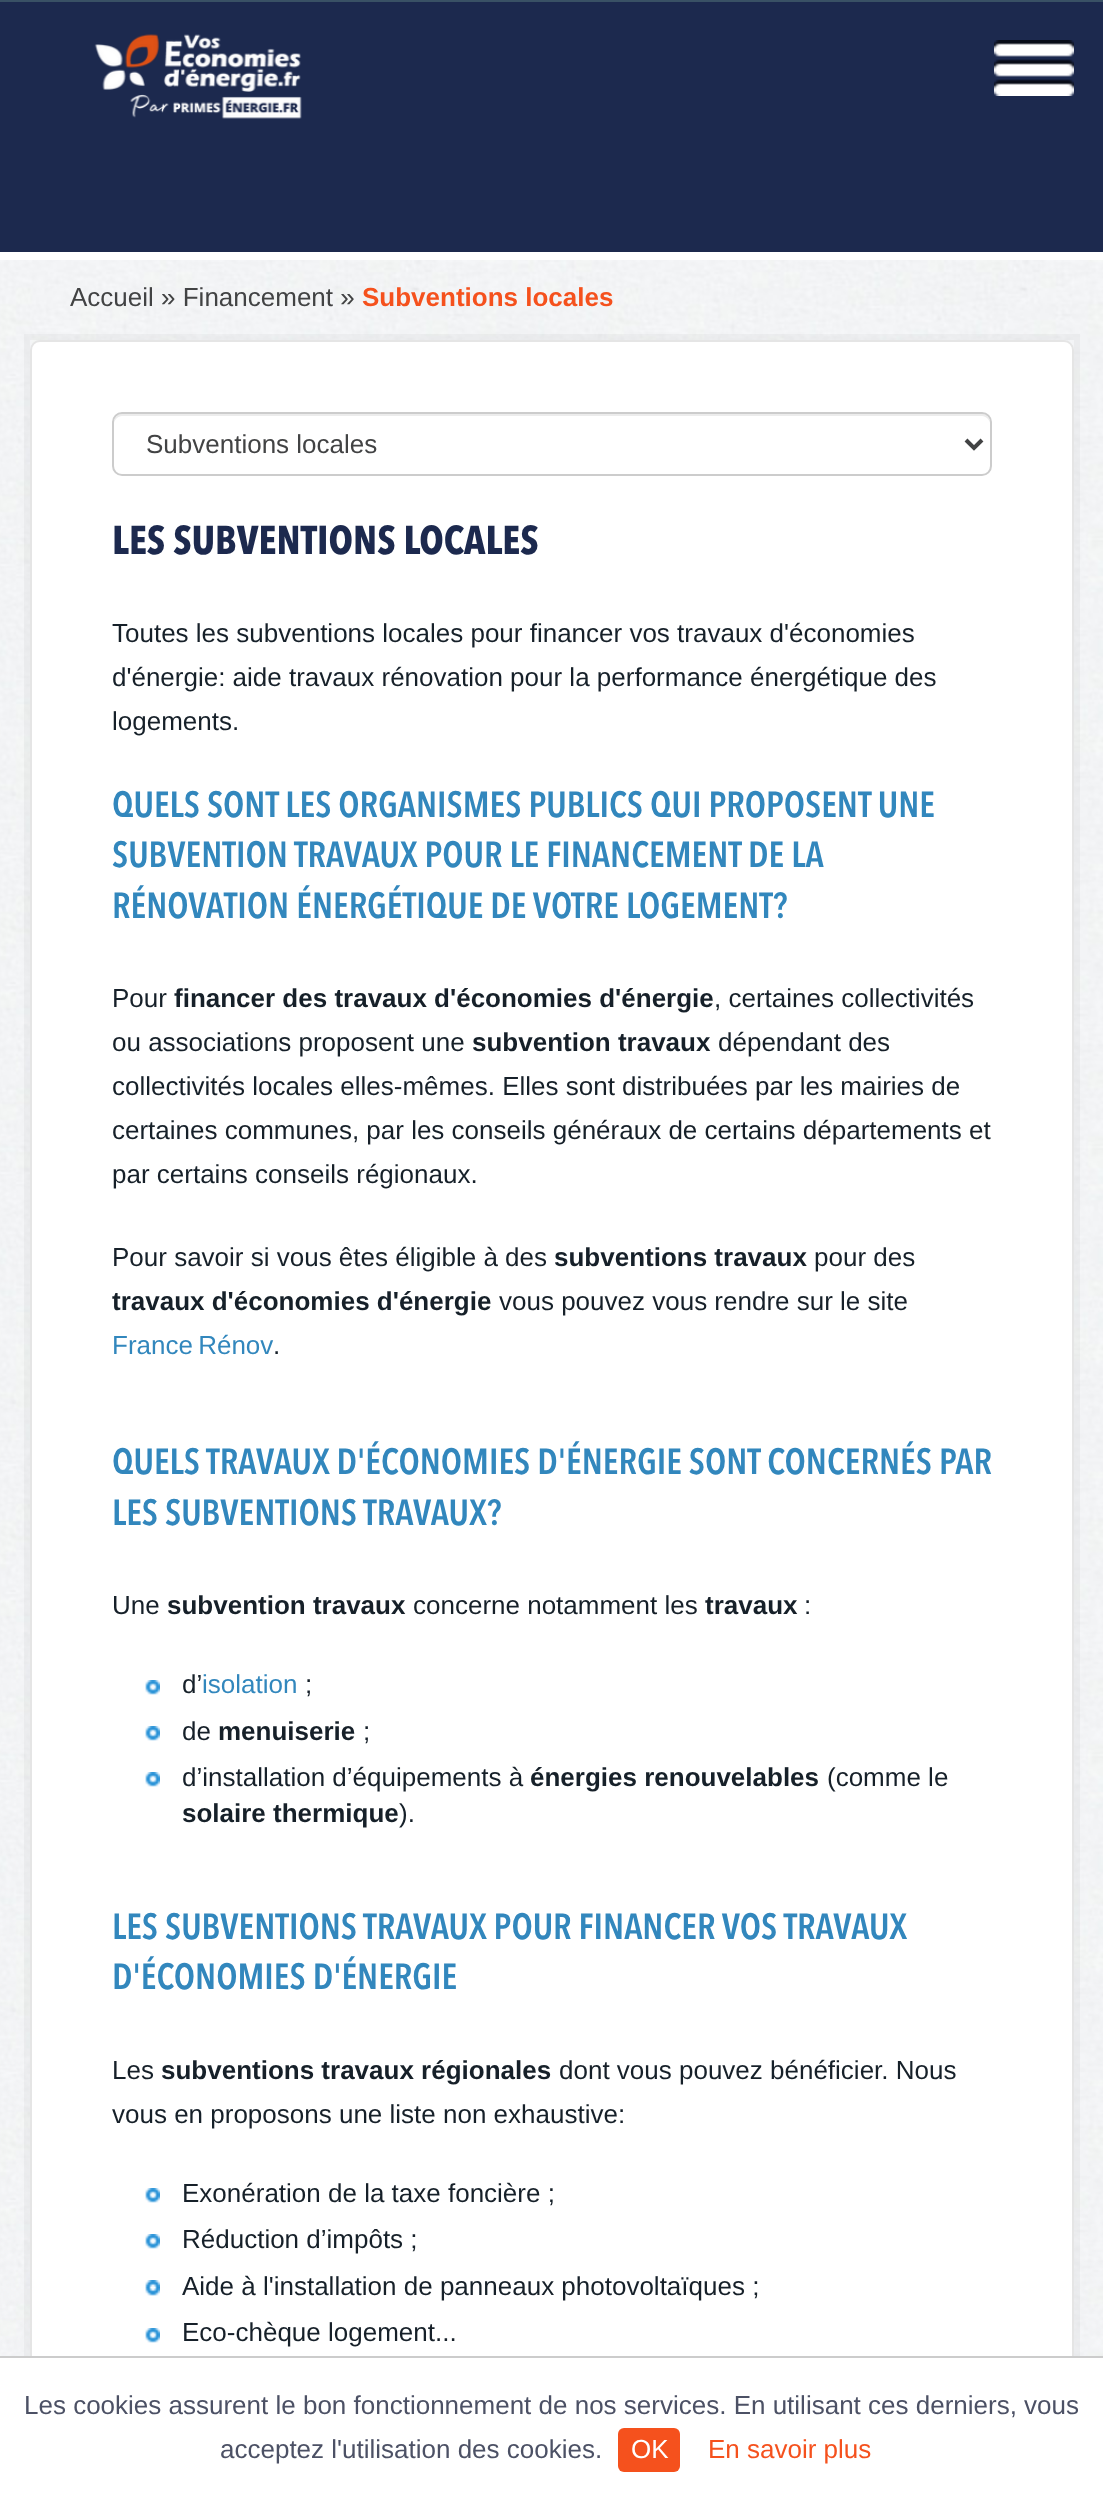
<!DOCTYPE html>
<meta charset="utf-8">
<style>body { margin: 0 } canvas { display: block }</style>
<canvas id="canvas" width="1103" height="2497"></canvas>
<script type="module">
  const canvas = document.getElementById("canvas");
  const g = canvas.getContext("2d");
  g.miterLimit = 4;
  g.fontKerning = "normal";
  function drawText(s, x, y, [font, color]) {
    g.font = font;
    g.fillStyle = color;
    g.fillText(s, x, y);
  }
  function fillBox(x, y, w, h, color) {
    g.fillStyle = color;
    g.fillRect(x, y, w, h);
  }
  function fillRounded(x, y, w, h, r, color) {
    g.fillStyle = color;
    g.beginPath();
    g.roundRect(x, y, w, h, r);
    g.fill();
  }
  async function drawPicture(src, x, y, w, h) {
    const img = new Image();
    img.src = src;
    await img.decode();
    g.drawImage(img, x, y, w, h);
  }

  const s1 = ["26px Liberation Sans", "#424344"];
  const s2 = ["bold 26px Liberation Sans", "#F5511D"];
  const s3 = ["bold 40px Avenir Next", "#1C294E"];
  const s4 = ["26px Liberation Sans", "#162029"];
  const s5 = ["600 36px Avenir Next", "#3287BD"];
  const s6 = ["bold 26px Liberation Sans", "#162029"];
  const s7 = ["26px Liberation Sans", "#3287BD"];
  const s8 = ["26px Liberation Sans", "#4C5165"];
  const s9 = ["26px Liberation Sans", "#FFFFFF"];
  const s10 = ["26px Liberation Sans", "#F5511D"];

  fillBox(0, 0, 1103, 2497, "#FFFFFF");
  await drawPicture("pic1.png", 0, 260, 1103, 2096);
  fillBox(0, 2, 1103, 250, "#1C294E");
  fillBox(0, 0, 1103, 2, "#395165");
  await drawPicture("pic2.png", 94, 34, 208, 85);
  await drawPicture("pic3.png", 994, 40, 80, 56);
  drawText("Accueil » Financement »", 70, 306, s1);
  drawText("Subventions locales", 362, 306, s2);
  g.strokeStyle = "rgba(0, 0, 0, 0.03)";
  g.lineWidth = 6;
  g.strokeRect(27, 337, 1050, 2100);
  g.fillStyle = "#FFFFFF";
  g.beginPath();
  g.roundRect(31, 341, 1042, 2092, 9);
  g.fill();
  g.strokeStyle = "#E5E5E5";
  g.lineWidth = 2;
  g.stroke();
  g.fillStyle = "#ECECEC";
  g.beginPath();
  g.moveTo(122, 416);
  g.lineTo(982, 416);
  g.bezierCurveTo(986, 416, 990, 420, 990, 424);
  g.bezierCurveTo(990, 419, 988, 414, 982, 414);
  g.lineTo(122, 414);
  g.bezierCurveTo(116, 414, 114, 419, 114, 424);
  g.bezierCurveTo(114, 420, 118, 416, 122, 416);
  g.closePath();
  g.fill();
  g.beginPath();
  g.roundRect(113, 413, 878, 62, 9);
  g.strokeStyle = "#CCCCCC";
  g.stroke();
  g.beginPath();
  g.moveTo(966, 440);
  g.lineTo(974, 448);
  g.lineTo(982, 440);
  g.strokeStyle = "#424344";
  g.lineWidth = 4;
  g.stroke();
  drawText("Subventions locales", 146, 453, s1);
  drawText("LES SUBVENTIONS LOCALES", 112, 554, s3);
  drawText("Toutes les subventions locales pour financer vos travaux d'économies", 112, 642, s4);
  drawText("d'énergie: aide travaux rénovation pour la performance énergétique des", 112, 686, s4);
  drawText("logements.", 112, 730, s4);
  drawText("QUELS SONT LES ORGANISMES PUBLICS QUI PROPOSENT UNE", 112, 817, s5);
  drawText("SUBVENTION TRAVAUX POUR LE FINANCEMENT DE LA", 112, 867, s5);
  drawText("RÉNOVATION ÉNERGÉTIQUE DE VOTRE LOGEMENT?", 112, 918, s5);
  drawText("Pour", 112, 1007, s4);
  drawText("financer des travaux d'économies d'énergie", 174, 1007, s6);
  drawText(", certaines collectivités", 714, 1007, s4);
  drawText("ou associations proposent une", 112, 1051, s4);
  drawText("subvention travaux", 472, 1051, s6);
  drawText("dépendant des", 718, 1051, s4);
  drawText("collectivités locales elles-mêmes. Elles sont distribuées par les mairies de", 112, 1095, s4);
  drawText("certaines communes, par les conseils généraux de certains départements et", 112, 1139, s4);
  drawText("par certains conseils régionaux.", 112, 1183, s4);
  drawText("Pour savoir si vous êtes éligible à des", 112, 1266, s4);
  drawText("subventions travaux", 554, 1266, s6);
  drawText("pour des", 814, 1266, s4);
  drawText("travaux d'économies d'énergie", 112, 1310, s6);
  drawText("vous pouvez vous rendre sur le site", 499, 1310, s4);
  g.wordSpacing = "-2px";
  drawText("France Rénov", 112, 1354, s7);
  g.wordSpacing = "0px";
  drawText(".", 273, 1354, s4);
  drawText("QUELS TRAVAUX D'ÉCONOMIES D'ÉNERGIE SONT CONCERNÉS PAR", 112, 1474, s5);
  drawText("LES SUBVENTIONS TRAVAUX?", 112, 1525, s5);
  drawText("Une", 112, 1614, s4);
  drawText("subvention travaux", 167, 1614, s6);
  drawText("concerne notamment les", 413, 1614, s4);
  drawText("travaux", 705, 1614, s6);
  drawText(":", 804, 1614, s4);
  await drawPicture("pic4.png", 145, 1680, 15, 15);
  drawText("d’", 182, 1693, s4);
  drawText("isolation", 202, 1693, s7);
  drawText(";", 305, 1693, s4);
  await drawPicture("pic4.png", 145, 1726, 15, 15);
  drawText("de", 182, 1740, s4);
  drawText("menuiserie", 218, 1740, s6);
  drawText(";", 363, 1740, s4);
  await drawPicture("pic5.png", 145, 1772, 15, 15);
  drawText("d’installation d’équipements à", 182, 1786, s4);
  drawText("énergies renouvelables", 530, 1786, s6);
  drawText("(comme le", 827, 1786, s4);
  drawText("solaire thermique", 182, 1822, s6);
  drawText(").", 399, 1822, s4);
  drawText("LES SUBVENTIONS TRAVAUX POUR FINANCER VOS TRAVAUX", 112, 1939, s5);
  drawText("D'ÉCONOMIES D'ÉNERGIE", 112, 1989, s5);
  drawText("Les", 112, 2079, s4);
  drawText("subventions travaux régionales", 161, 2079, s6);
  drawText("dont vous pouvez bénéficier. Nous", 559, 2079, s4);
  drawText("vous en proposons une liste non exhaustive:", 112, 2123, s4);
  await drawPicture("pic4.png", 145, 2188, 15, 15);
  drawText("Exonération de la taxe foncière ;", 182, 2202, s4);
  await drawPicture("pic4.png", 145, 2234, 15, 15);
  drawText("Réduction d’impôts ;", 182, 2248, s4);
  await drawPicture("pic6.png", 145, 2280, 15, 16);
  drawText("Aide à l'installation de panneaux photovoltaïques ;", 182, 2295, s4);
  await drawPicture("pic4.png", 145, 2328, 15, 15);
  drawText("Eco-chèque logement...", 182, 2341, s4);
  fillBox(24, 2358, 1056, 82, "#FFFFFF");
  fillBox(0, 2356, 1103, 2, "#CCCCCC");
  drawText("Les cookies assurent le bon fonctionnement de nos services. En utilisant ces derniers, vous", 24, 2414, s8);
  drawText("acceptez l'utilisation des cookies.", 220, 2458, s8);
  fillRounded(618, 2428, 62, 44, 6, "#F5511D");
  drawText("OK", 631, 2458, s9);
  drawText("En savoir plus", 708, 2458, s10);
</script>
